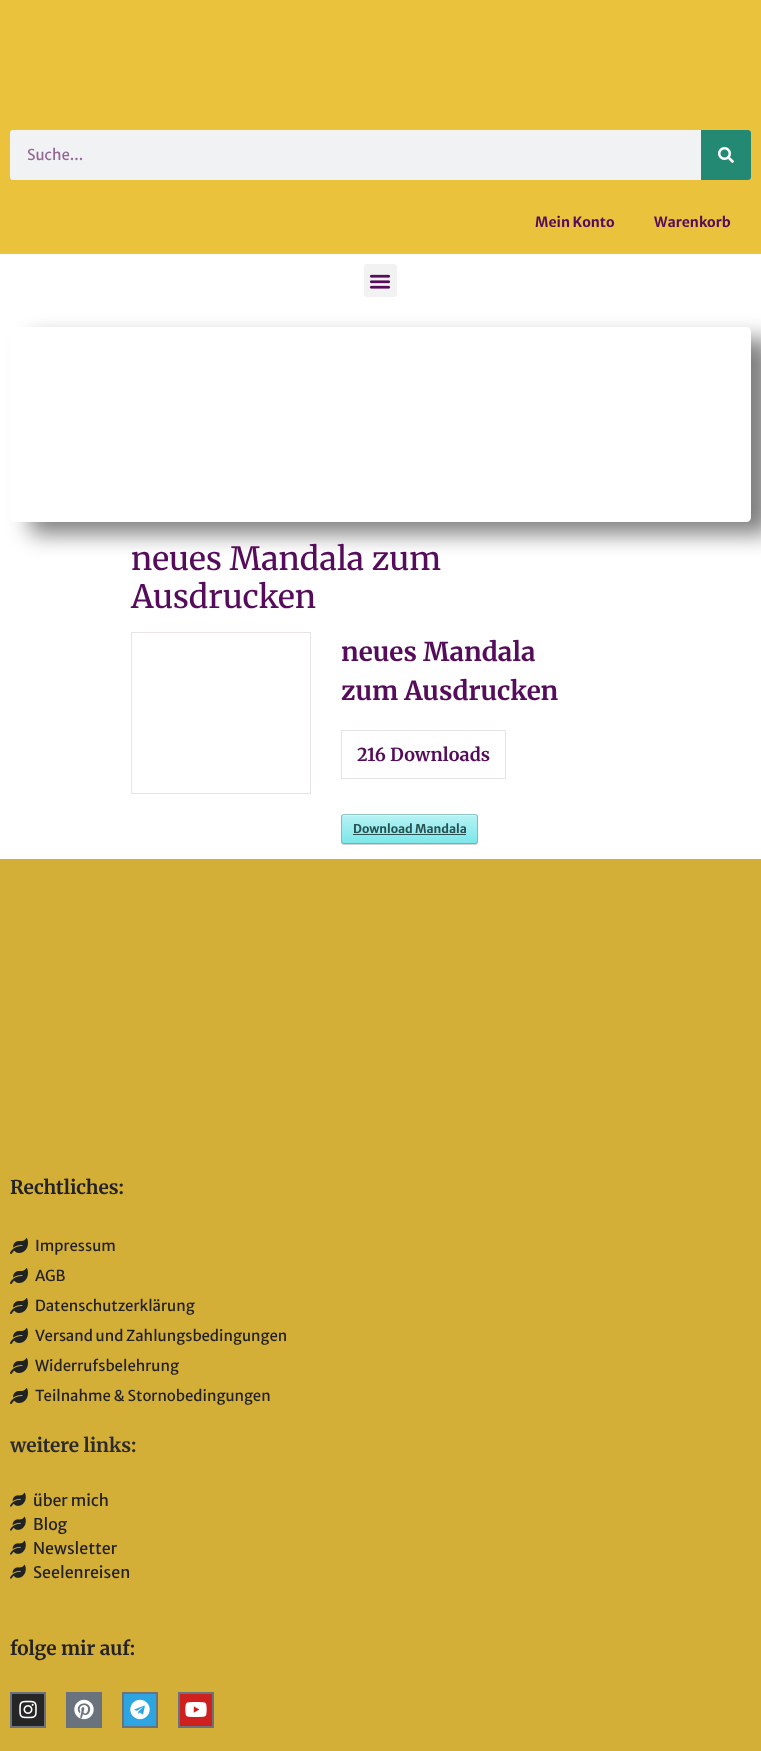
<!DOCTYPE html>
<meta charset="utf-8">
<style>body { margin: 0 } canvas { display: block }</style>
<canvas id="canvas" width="761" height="1751"></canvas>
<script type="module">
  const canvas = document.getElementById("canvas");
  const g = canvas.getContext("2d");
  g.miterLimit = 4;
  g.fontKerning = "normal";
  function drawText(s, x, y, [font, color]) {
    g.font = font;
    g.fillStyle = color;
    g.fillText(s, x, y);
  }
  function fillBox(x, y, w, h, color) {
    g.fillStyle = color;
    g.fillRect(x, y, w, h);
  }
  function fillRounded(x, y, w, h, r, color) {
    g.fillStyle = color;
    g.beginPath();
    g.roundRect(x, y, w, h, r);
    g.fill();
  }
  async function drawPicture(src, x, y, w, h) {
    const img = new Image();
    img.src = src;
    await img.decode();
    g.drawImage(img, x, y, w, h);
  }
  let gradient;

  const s1 = ["15px Merriweather Sans", "#936897"];
  const s2 = ["bold 14px Merriweather Sans", "#550C5A"];
  const s3 = ["500 32px Merriweather", "#550C5A"];
  const s4 = ["bold 26px Merriweather", "#550C5A"];
  const s5 = ["bold 18px Merriweather", "#550C5A"];
  const s6 = ["bold 12px Merriweather Sans", "#2B5052"];
  const s7 = ["bold 19px Merriweather", "#242224"];
  const s8 = ["15px Merriweather Sans", "#242224"];
  const s9 = ["bold 19px Merriweather", "#2C2B2C"];
  const s10 = ["16px Merriweather Sans", "#242224"];

  fillBox(0, 0, 761, 1751, "#FFFFFF");
  fillBox(0, 0, 761, 254, "#EBC23C");
  fillRounded(10, 130, 741, 50, 3, "#F1F2F3");
  drawText("Suche...", 27, 160, s1);
  g.fillStyle = "#238972";
  g.beginPath();
  g.roundRect(701, 130, 50, 50, [0, 3, 3, 0]);
  g.fill();
  await drawPicture("pic1.png", 718, 147, 16, 16);
  drawText("Mein Konto", 535, 227, s2);
  drawText("Warenkorb", 654, 227, s2);
  fillRounded(364, 264, 33, 33, 3, "#F2F2F2");
  await drawPicture("pic2.png", 369, 274, 22, 15);
  g.save();
  g.beginPath();
  g.moveTo(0, 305);
  g.lineTo(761, 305);
  g.lineTo(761, 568);
  g.lineTo(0, 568);
  g.closePath();
  g.moveTo(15, 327);
  g.lineTo(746, 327);
  g.bezierCurveTo(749, 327, 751, 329, 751, 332);
  g.lineTo(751, 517);
  g.bezierCurveTo(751, 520, 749, 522, 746, 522);
  g.lineTo(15, 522);
  g.bezierCurveTo(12, 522, 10, 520, 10, 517);
  g.lineTo(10, 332);
  g.bezierCurveTo(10, 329, 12, 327, 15, 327);
  g.closePath();
  g.clip("evenodd");
  g.fillStyle = "rgba(0, 0, 0, 0.5)";
  g.filter = "blur(11px)";
  g.beginPath();
  g.roundRect(30, 339, 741, 195, 5);
  g.fill();
  g.filter = "none";
  g.restore();
  drawText("neues Mandala zum", 131, 570, s3);
  drawText("Ausdrucken", 131, 608, s3);
  g.strokeStyle = "#E8E4E3";
  g.strokeRect(131.5, 632.5, 179, 161);
  drawText("neues Mandala", 341, 661, s4);
  drawText("zum Ausdrucken", 341, 700, s4);
  g.strokeRect(341.5, 730.5, 164, 48);
  drawText("216 Downloads", 357, 761, s5);
  g.fillStyle = "#D5D5D5";
  g.filter = "blur(0.5px)";
  g.beginPath();
  g.roundRect(341, 815, 137, 30, 3);
  g.fill();
  g.filter = "none";
  g.save();
  g.beginPath();
  g.roundRect(341, 814, 137, 30, 3);
  g.clip();
  gradient = g.createLinearGradient(342, 815, 342, 843);
  gradient.addColorStop(0, "#B7F2F4");
  gradient.addColorStop(1, "#7CE7EA");
  g.fillStyle = gradient;
  g.fillRect(341, 815, 137, 28);
  g.restore();
  g.fillStyle = "#C9F5F7";
  g.beginPath();
  g.moveTo(344, 816);
  g.lineTo(475, 816);
  g.bezierCurveTo(476, 816, 477, 817, 477, 818);
  g.bezierCurveTo(477, 817, 477, 815, 475, 815);
  g.lineTo(344, 815);
  g.bezierCurveTo(342, 815, 342, 817, 342, 818);
  g.bezierCurveTo(342, 817, 343, 816, 344, 816);
  g.closePath();
  g.fill();
  g.beginPath();
  g.moveTo(342, 815);
  g.lineTo(344, 814.5);
  g.lineTo(475, 814.5);
  g.lineTo(477, 815);
  g.strokeStyle = "#90C6C8";
  g.stroke();
  g.beginPath();
  g.moveTo(477, 815);
  g.bezierCurveTo(477, 815.5, 477.5, 816.5, 477.5, 817);
  g.lineTo(477.5, 841);
  g.bezierCurveTo(477.5, 841.5, 477, 842.5, 477, 843);
  g.strokeStyle = "#78BDC0";
  g.stroke();
  g.beginPath();
  g.moveTo(477, 843);
  g.lineTo(475, 843.5);
  g.lineTo(344, 843.5);
  g.lineTo(342, 843);
  g.strokeStyle = "#65B6BA";
  g.stroke();
  g.beginPath();
  g.moveTo(342, 843);
  g.bezierCurveTo(342, 842.5, 341.5, 841.5, 341.5, 841);
  g.lineTo(341.5, 817);
  g.bezierCurveTo(341.5, 816.5, 342, 815.5, 342, 815);
  g.strokeStyle = "#78BDC0";
  g.stroke();
  drawText("Download Mandala", 353, 833, s6);
  fillBox(353, 834, 113, 1, "#2B5052");
  fillBox(0, 859, 761, 892, "#D3AF37");
  drawText("Rechtliches:", 10, 1194, s7);
  await drawPicture("pic3.png", 10, 1238, 18, 16);
  drawText("Impressum", 35, 1251, s8);
  await drawPicture("pic3.png", 10, 1268, 18, 16);
  drawText("AGB", 35, 1281, s8);
  await drawPicture("pic3.png", 10, 1298, 18, 16);
  drawText("Datenschutzerklärung", 35, 1311, s8);
  await drawPicture("pic3.png", 10, 1328, 18, 16);
  drawText("Versand und Zahlungsbedingungen", 35, 1341, s8);
  await drawPicture("pic3.png", 10, 1358, 18, 16);
  drawText("Widerrufsbelehrung", 35, 1371, s8);
  await drawPicture("pic3.png", 10, 1388, 18, 16);
  drawText("Teilnahme & Stornobedingungen", 35, 1401, s8);
  drawText("weitere links:", 10, 1452, s9);
  await drawPicture("pic4.png", 10, 1492, 16, 15);
  drawText("über mich", 33, 1506, s10);
  await drawPicture("pic4.png", 10, 1516, 16, 15);
  drawText("Blog", 33, 1530, s10);
  await drawPicture("pic4.png", 10, 1540, 16, 15);
  drawText("Newsletter", 33, 1554, s10);
  await drawPicture("pic4.png", 10, 1564, 16, 15);
  drawText("Seelenreisen", 33, 1578, s10);
  drawText("folge mir auf:", 10, 1655, s7);
  g.fillStyle = "#262626";
  g.beginPath();
  g.rect(11, 1693, 34, 34);
  g.fill();
  g.strokeStyle = "#69727D";
  g.lineWidth = 2;
  g.stroke();
  await drawPicture("pic5.png", 19, 1700, 18, 19);
  fillBox(66, 1692, 36, 36, "#69727D");
  await drawPicture("pic6.png", 74, 1699, 20, 21);
  g.fillStyle = "#2CA5E0";
  g.beginPath();
  g.rect(123, 1693, 34, 34);
  g.fill();
  g.stroke();
  await drawPicture("pic7.png", 130, 1699, 20, 21);
  g.fillStyle = "#CD201F";
  g.beginPath();
  g.rect(179, 1693, 34, 34);
  g.fill();
  g.stroke();
  await drawPicture("pic8.png", 185, 1702, 22, 15);
</script>
